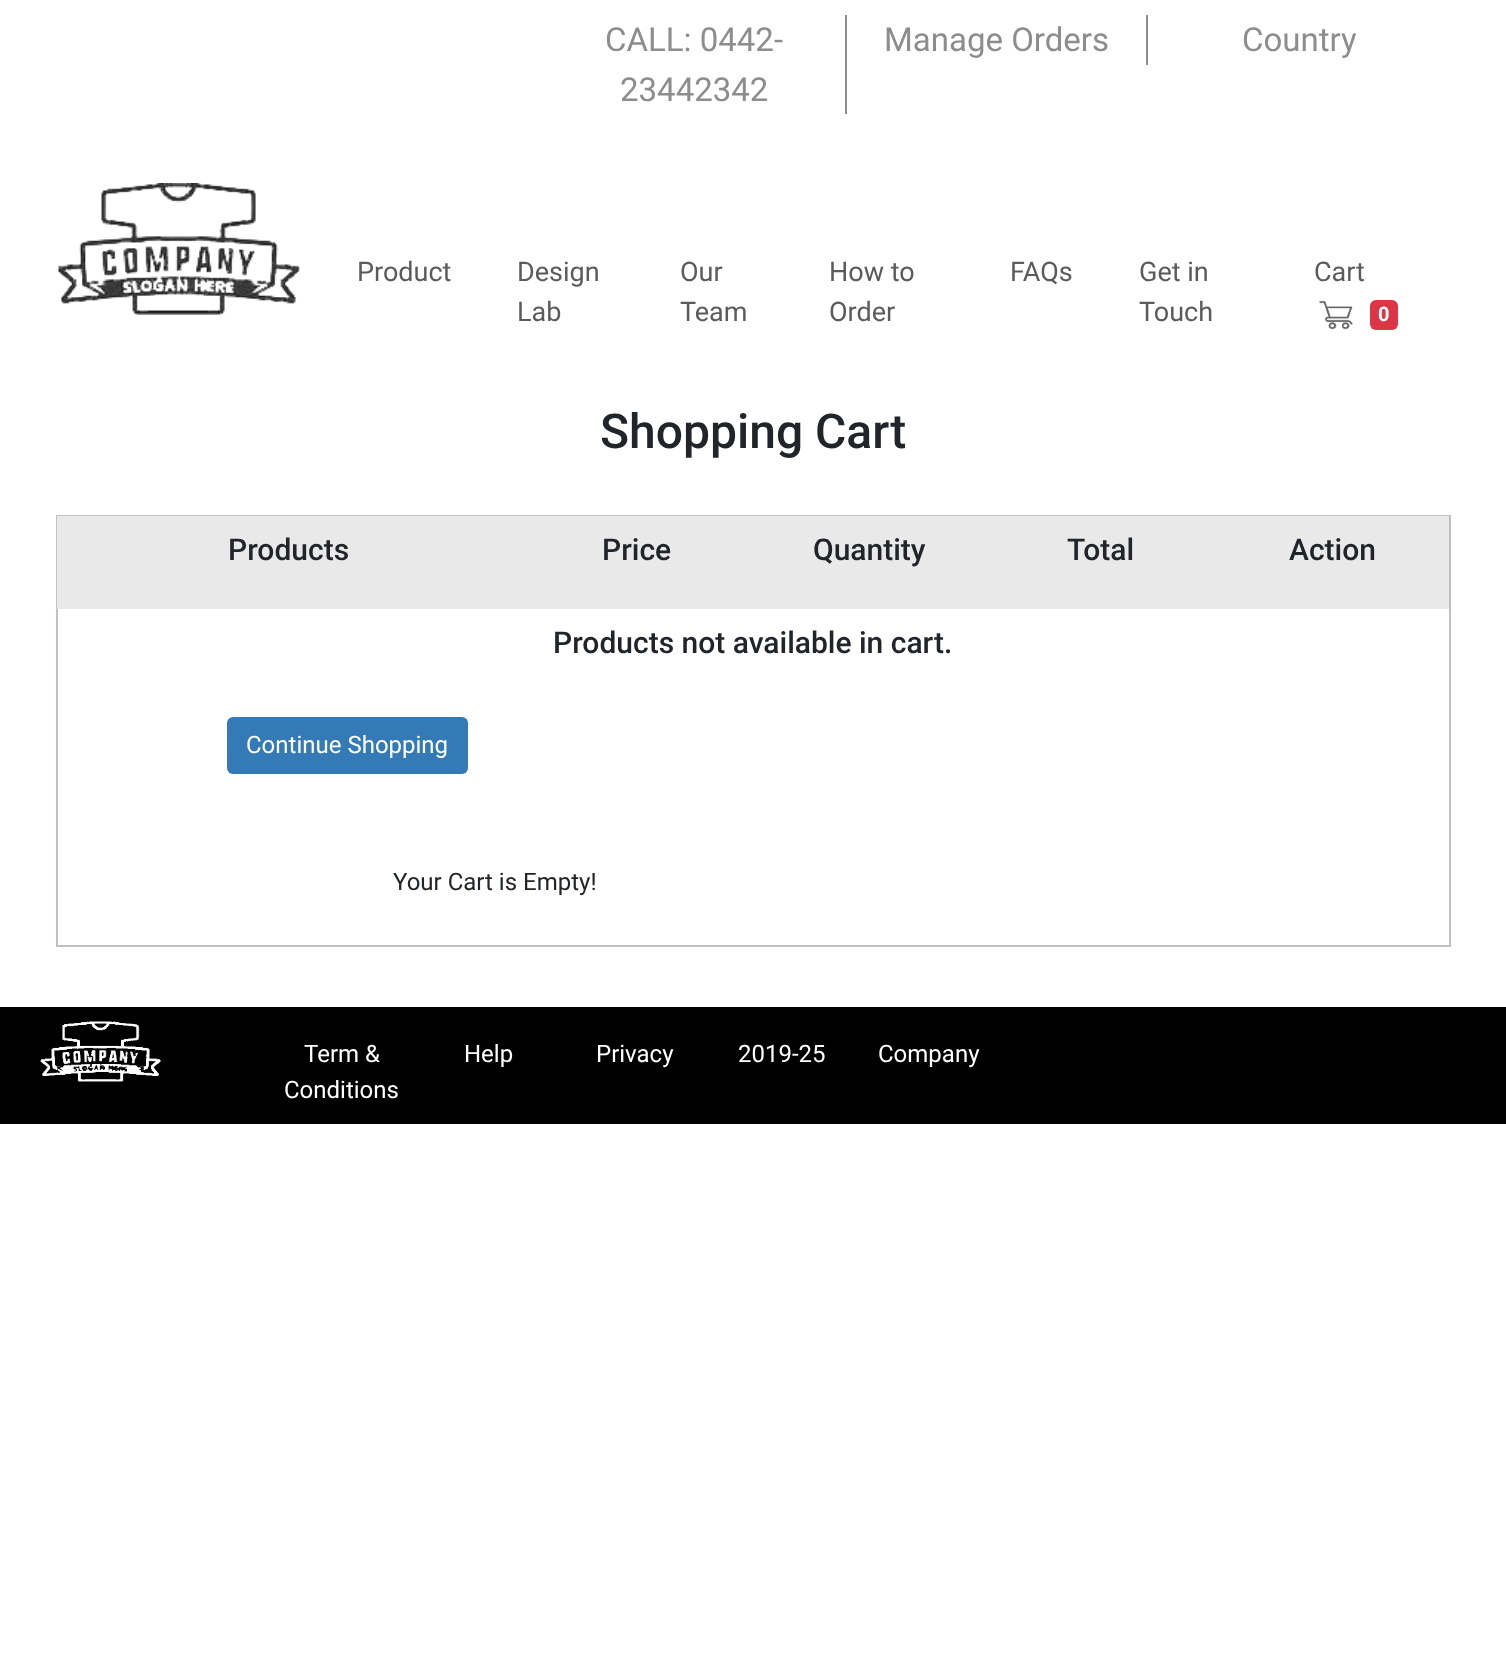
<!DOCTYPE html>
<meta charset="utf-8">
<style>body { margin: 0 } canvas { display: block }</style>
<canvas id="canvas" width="1506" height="1659"></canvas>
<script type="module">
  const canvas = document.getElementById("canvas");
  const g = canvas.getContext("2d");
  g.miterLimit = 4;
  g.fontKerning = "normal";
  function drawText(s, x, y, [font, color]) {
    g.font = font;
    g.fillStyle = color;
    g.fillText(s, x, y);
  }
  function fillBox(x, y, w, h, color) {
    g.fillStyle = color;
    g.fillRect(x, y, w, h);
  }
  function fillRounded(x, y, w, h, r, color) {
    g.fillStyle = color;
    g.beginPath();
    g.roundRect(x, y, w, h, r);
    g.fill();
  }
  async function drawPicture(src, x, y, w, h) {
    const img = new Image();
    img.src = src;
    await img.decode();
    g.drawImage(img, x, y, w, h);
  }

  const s1 = ["33px Roboto", "#8D8D8D"];
  const s2 = ["27px Roboto", "#5B5B5B"];
  const s3 = ["bold 20px Roboto", "#FFFFFF"];
  const s4 = ["500 48px Roboto", "#212529"];
  const s5 = ["500 30px Roboto", "#212529"];
  const s6 = ["24px Roboto", "#FFFFFF"];
  const s7 = ["24px Roboto", "#212529"];

  fillBox(0, 0, 1506, 1659, "#FFFFFF");
  fillBox(845, 15, 2, 99, "#8D8D8D");
  drawText("CALL: 0442-", 605, 51, s1);
  drawText("23442342", 620, 101, s1);
  fillBox(1146, 15, 2, 50, "#8D8D8D");
  drawText("Manage Orders", 884, 51, s1);
  drawText("Country", 1242, 51, s1);
  await drawPicture("pic1.png", 57, 183, 243, 132);
  drawText("Product", 357, 281, s2);
  drawText("Design", 517, 281, s2);
  drawText("Lab", 517, 321, s2);
  drawText("Our", 680, 281, s2);
  drawText("Team", 680, 321, s2);
  drawText("How to", 829, 281, s2);
  drawText("Order", 829, 321, s2);
  drawText("FAQs", 1010, 281, s2);
  drawText("Get in", 1139, 281, s2);
  drawText("Touch", 1139, 321, s2);
  drawText("Cart", 1314, 281, s2);
  await drawPicture("pic2.png", 1319, 300, 34, 30);
  fillRounded(1370, 300, 28, 30, 6, "#DC3545");
  drawText("0", 1378, 321, s3);
  drawText("Shopping Cart", 600, 448, s4);
  g.strokeStyle = "#C5C0C0";
  g.lineWidth = 2;
  g.strokeRect(57, 516, 1393, 430);
  fillBox(57, 516, 1392, 93, "#EAE9E9");
  drawText("Products", 228, 560, s5);
  drawText("Price", 602, 560, s5);
  drawText("Quantity", 813, 560, s5);
  drawText("Total", 1067, 560, s5);
  drawText("Action", 1289, 560, s5);
  drawText("Products not available in cart.", 553, 653, s5);
  fillRounded(227, 717, 241, 57, 6, "#337AB7");
  drawText("Continue Shopping", 246, 753, s6);
  drawText("Your Cart is Empty!", 393, 890, s7);
  fillBox(0, 1007, 1506, 117, "#000000");
  await drawPicture("pic3.png", 40, 1021, 121, 61);
  drawText("Term &", 304, 1062, s6);
  drawText("Conditions", 284, 1098, s6);
  drawText("Help", 464, 1062, s6);
  drawText("Privacy", 596, 1062, s6);
  drawText("2019-25", 738, 1062, s6);
  drawText("Company", 878, 1062, s6);
</script>
